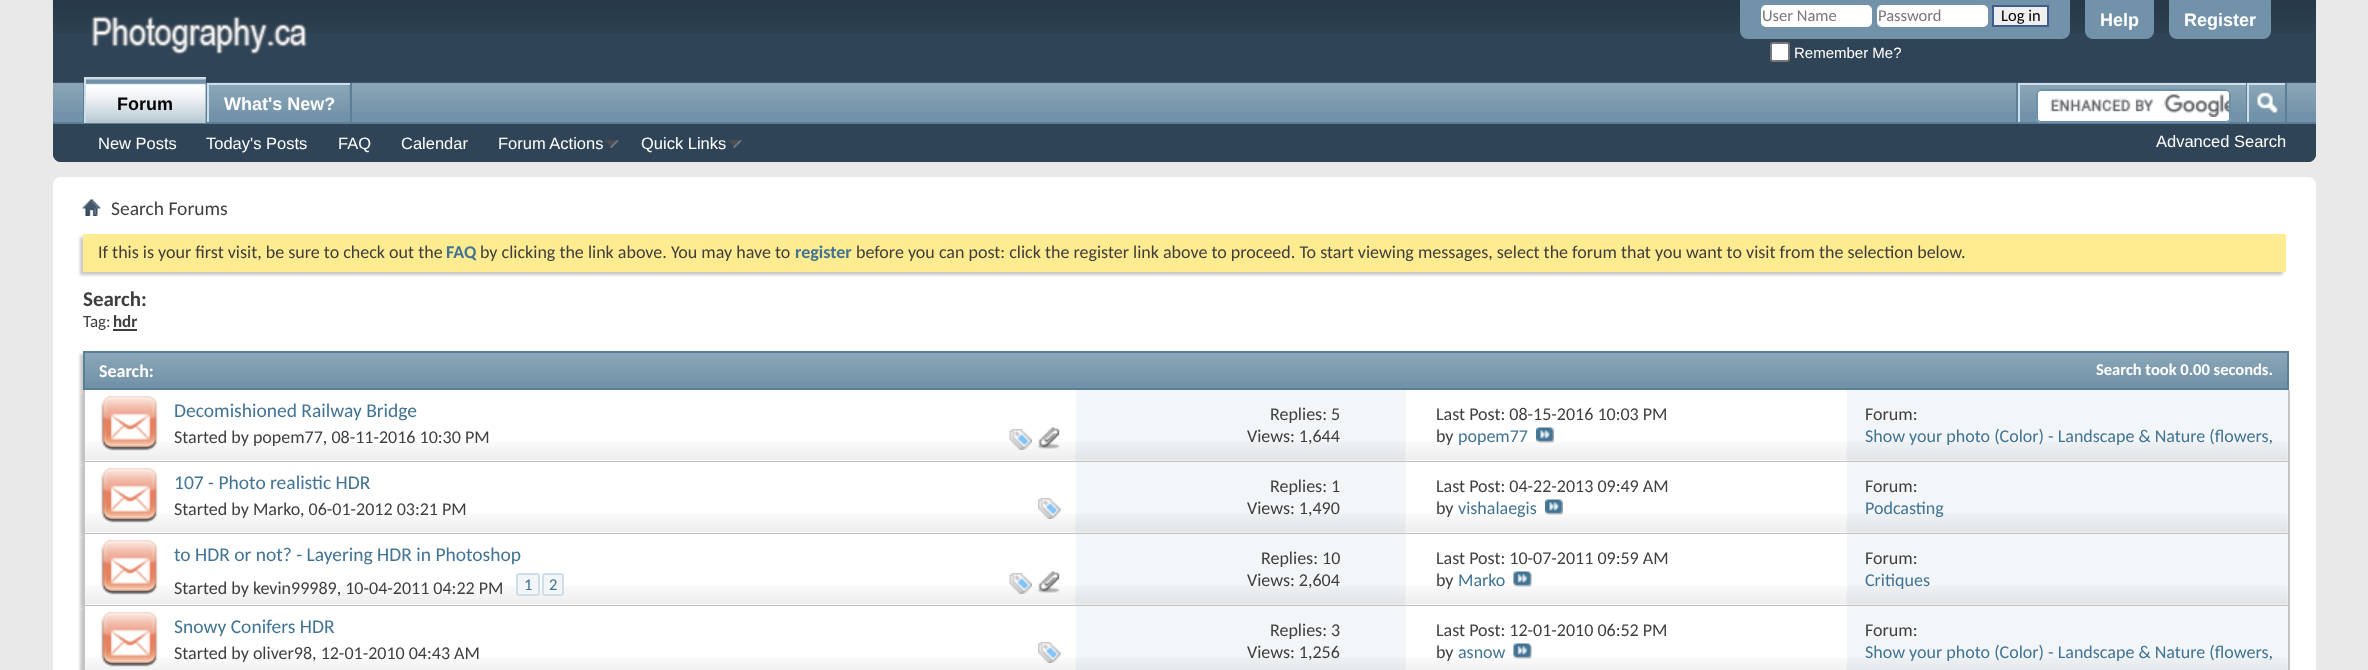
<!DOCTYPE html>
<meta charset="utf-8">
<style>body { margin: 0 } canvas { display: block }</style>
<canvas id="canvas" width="2368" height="670"></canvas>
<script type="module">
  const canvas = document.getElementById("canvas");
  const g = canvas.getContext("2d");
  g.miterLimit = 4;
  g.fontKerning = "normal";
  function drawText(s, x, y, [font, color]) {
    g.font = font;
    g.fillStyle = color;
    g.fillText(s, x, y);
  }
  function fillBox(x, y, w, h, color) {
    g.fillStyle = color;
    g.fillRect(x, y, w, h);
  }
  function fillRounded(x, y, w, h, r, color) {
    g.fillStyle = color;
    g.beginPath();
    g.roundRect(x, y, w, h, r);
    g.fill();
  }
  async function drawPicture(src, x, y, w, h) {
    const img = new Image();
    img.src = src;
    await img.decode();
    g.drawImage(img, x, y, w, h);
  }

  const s1 = ["16.5px Carlito", "#777777"];
  const s2 = ["16.5px Carlito", "#000000"];
  const s3 = ["15px Liberation Sans", "#FFFFFF"];
  const s4 = ["bold 18px Liberation Sans", "#FFFFFF"];
  const s5 = ["bold 18px Liberation Sans", "#000000"];
  const s6 = ["16.5px Liberation Sans", "#FFFFFF"];
  const s7 = ["19.5px Carlito", "#3E3E3E"];
  const s8 = ["18px Carlito", "#3E3E3E"];
  const s9 = ["bold 18px Carlito", "#417394"];
  const s10 = ["bold 21px Carlito", "#3E3E3E"];
  const s11 = ["17px Carlito", "#3E3E3E"];
  const s12 = ["bold 17px Carlito", "#3E3E3E"];
  const s13 = ["bold 18px Carlito", "#FFFFFF"];
  const s14 = ["bold 16.5px Carlito", "#FFFFFF"];
  const s15 = ["19.5px Carlito", "#417394"];
  const s16 = ["18px Carlito", "#417394"];
  const s17 = ["16.5px Carlito", "#417394"];

  fillBox(0, 0, 2368, 670, "#E9E9E9");
  g.fillStyle = "#2F4456";
  g.beginPath();
  g.roundRect(53, 0, 2263, 162, [0, 0, 8, 8]);
  g.fill();
  await drawPicture("pic1.png", 52, 0, 2264, 33);
  await drawPicture("pic2.png", 91, 16, 217, 39);
  g.fillStyle = "#7192A8";
  g.beginPath();
  g.roundRect(1740, 0, 330, 39, [0, 0, 8, 8]);
  g.fill();
  fillRounded(1761, 5, 111, 22, 5, "#FFFFFF");
  drawText("User Name", 1762, 21, s1);
  fillRounded(1877, 5, 111, 22, 5, "#FFFFFF");
  drawText("Password", 1878, 21, s1);
  g.fillStyle = "#EFEFEF";
  g.beginPath();
  g.rect(1993, 6, 55, 20);
  g.fill();
  g.strokeStyle = "#415D8D";
  g.lineWidth = 2;
  g.stroke();
  drawText("Log in", 2001, 21, s2);
  g.fillStyle = "#FFFFFF";
  g.beginPath();
  g.roundRect(1771, 43, 18, 18, 2);
  g.fill();
  g.strokeStyle = "#767676";
  g.stroke();
  drawText("Remember Me?", 1794, 58, s3);
  g.fillStyle = "#7192A8";
  g.beginPath();
  g.roundRect(2085, 0, 69, 39, [0, 0, 8, 8]);
  g.fill();
  drawText("Help", 2100, 26, s4);
  g.fillStyle = "#7192A8";
  g.beginPath();
  g.roundRect(2169, 0, 102, 39, [0, 0, 8, 8]);
  g.fill();
  drawText("Register", 2184, 26, s4);
  g.fillStyle = "#2F4456";
  g.beginPath();
  g.roundRect(53, 83, 2263, 79, [0, 0, 8, 8]);
  g.fill();
  fillBox(53, 83, 2263, 39, "#7192A8");
  await drawPicture("pic3.png", 53, 82, 2263, 30);
  fillBox(350, 83, 2, 40, "#5A7F97");
  fillBox(209, 85, 141, 27, "#7192A8");
  await drawPicture("pic4.png", 209, 85, 141, 28);
  fillBox(207, 83, 143, 2, "#CEDFEB");
  fillBox(207, 83, 2, 40, "#CEDFEB");
  drawText("What's New?", 224, 110, s4);
  fillBox(206, 83, 1, 39, "#5A7F97");
  fillBox(83, 83, 1, 39, "#5A7F97");
  fillBox(53, 122, 2263, 2, "#5A7F97");
  fillBox(86, 79, 120, 44, "#7192A8");
  await drawPicture("pic5.png", 86, 79, 120, 44);
  fillBox(84, 77, 122, 2, "#CEDFEB");
  fillBox(84, 77, 2, 46, "#CEDFEB");
  drawText("Forum", 117, 110, s5);
  drawText("New Posts", 98, 149, s6);
  drawText("Today's Posts", 206, 149, s6);
  drawText("FAQ", 338, 149, s6);
  drawText("Calendar", 401, 149, s6);
  drawText("Forum Actions", 498, 149, s6);
  await drawPicture("pic6.png", 605, 139, 14, 9);
  drawText("Quick Links", 641, 149, s6);
  await drawPicture("pic6.png", 728, 139, 14, 9);
  fillBox(2016, 83, 2, 39, "#5A7F97");
  fillBox(2018, 83, 228, 2, "#CEDFEB");
  fillBox(2018, 83, 2, 39, "#CEDFEB");
  fillRounded(2036, 89, 195, 34, 5, "#FFFFFF");
  await drawPicture("pic7.png", 2050, 94, 179, 23);
  g.beginPath();
  g.roundRect(2037, 90, 193, 32, 4);
  g.strokeStyle = "#6B91AB";
  g.stroke();
  fillBox(2285, 83, 2, 39, "#5A7F97");
  fillBox(2246, 83, 1, 39, "#5A7F97");
  fillBox(2247, 83, 38, 2, "#CEDFEB");
  fillBox(2247, 83, 2, 39, "#CEDFEB");
  await drawPicture("pic8.png", 2257, 92, 21, 22);
  drawText("Advanced Search", 2156, 147, s6);
  fillRounded(53, 177, 2263, 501, 8, "#FFFFFF");
  await drawPicture("pic9.png", 82, 199, 19, 17);
  drawText("Search Forums", 111, 215, s7);
  g.fillStyle = "#C8C8C8";
  g.filter = "blur(1.5px)";
  g.beginPath();
  g.rect(80, 237, 2203, 38);
  g.fill();
  g.filter = "none";
  fillBox(83, 234, 2203, 38, "#FFEB90");
  drawText("If this is your first visit, be sure to check out the", 98, 258, s8);
  drawText("FAQ", 446, 258, s9);
  drawText("by clicking the link above. You may have to", 480, 258, s8);
  drawText("register", 795, 258, s9);
  drawText("before you can post: click the register link above to proceed. To start viewing messages, select the forum that you want to visit from the selection below.", 856, 258, s8);
  drawText("Search:", 83, 306, s10);
  drawText("Tag:", 83, 327, s11);
  drawText("hdr", 113, 327, s12);
  fillBox(113, 329, 24, 2, "#3E3E3E");
  g.fillStyle = "#C8C8C8";
  g.filter = "blur(1.5px)";
  g.beginPath();
  g.rect(80, 354, 2206, 39);
  g.fill();
  g.filter = "none";
  fillBox(85, 353, 2202, 35, "#7192A8");
  await drawPicture("pic10.png", 85, 353, 2202, 29);
  g.strokeStyle = "#5A7F97";
  g.strokeRect(84, 352, 2204, 37);
  drawText("Search:", 99, 377, s13);
  drawText("Search took 0.00 seconds.", 2096, 375, s14);
  g.fillStyle = "#C8C8C8";
  g.filter = "blur(1.5px)";
  g.beginPath();
  g.rect(80, 393, 2203, 72);
  g.fill();
  g.filter = "none";
  fillBox(85, 390, 1762, 71, "#FFFFFF");
  await drawPicture("pic11.png", 82, 442, 1765, 19);
  fillBox(2288, 390, 2, 72, "#C4C4C4");
  fillBox(83, 461, 2206, 1, "#C4C4C4");
  fillBox(83, 390, 2, 72, "#C4C4C4");
  await drawPicture("pic12.png", 100, 396, 58, 55);
  drawText("Decomishioned Railway Bridge", 174, 417, s15);
  drawText("Started by popem77, 08-11-2016 10:30 PM", 174, 443, s8);
  await drawPicture("pic13.png", 1009, 429, 23, 21);
  await drawPicture("pic14.png", 1037, 427, 23, 22);
  fillBox(1076, 390, 330, 71, "#F2F6F8");
  await drawPicture("pic15.png", 1075, 442, 331, 19);
  drawText("Replies: 5", 1270, 420, s8);
  drawText("Views: 1,644", 1247, 442, s8);
  drawText("Last Post: 08-15-2016 10:03 PM", 1436, 420, s8);
  drawText("by", 1436, 442, s8);
  drawText("popem77", 1458, 442, s16);
  await drawPicture("pic16.png", 1536, 427, 18, 16);
  fillBox(1847, 390, 441, 71, "#F2F6F8");
  await drawPicture("pic17.png", 1846, 442, 442, 19);
  drawText("Forum:", 1865, 420, s8);
  drawText("Show your photo (Color) - Landscape & Nature (flowers,", 1865, 442, s16);
  g.fillStyle = "#C8C8C8";
  g.filter = "blur(1.5px)";
  g.beginPath();
  g.rect(80, 465, 2203, 72);
  g.fill();
  g.filter = "none";
  fillBox(85, 462, 1762, 71, "#FFFFFF");
  await drawPicture("pic18.png", 82, 514, 1765, 19);
  fillBox(2288, 462, 2, 72, "#C4C4C4");
  fillBox(83, 533, 2206, 1, "#C4C4C4");
  fillBox(83, 462, 2, 72, "#C4C4C4");
  await drawPicture("pic19.png", 100, 468, 58, 55);
  drawText("107 - Photo realistic HDR", 174, 489, s15);
  drawText("Started by Marko", 174, 515, s8);
  drawText(", 06-01-2012 03:21 PM", 300, 515, s8);
  await drawPicture("pic20.png", 1038, 498, 23, 21);
  fillBox(1076, 462, 330, 71, "#F2F6F8");
  await drawPicture("pic21.png", 1075, 514, 331, 19);
  drawText("Replies: 1", 1270, 492, s8);
  drawText("Views: 1,490", 1247, 514, s8);
  drawText("Last Post: 04-22-2013 09:49 AM", 1436, 492, s8);
  drawText("by", 1436, 514, s8);
  drawText("vishalaegis", 1458, 514, s16);
  await drawPicture("pic16.png", 1545, 499, 18, 16);
  fillBox(1847, 462, 441, 71, "#F2F6F8");
  await drawPicture("pic22.png", 1846, 514, 442, 19);
  drawText("Forum:", 1865, 492, s8);
  drawText("Podcasting", 1865, 514, s16);
  g.fillStyle = "#C8C8C8";
  g.filter = "blur(1.5px)";
  g.beginPath();
  g.rect(80, 537, 2203, 72);
  g.fill();
  g.filter = "none";
  fillBox(85, 534, 1762, 71, "#FFFFFF");
  await drawPicture("pic18.png", 82, 586, 1765, 19);
  fillBox(2288, 534, 2, 72, "#C4C4C4");
  fillBox(83, 605, 2206, 1, "#C4C4C4");
  fillBox(83, 534, 2, 72, "#C4C4C4");
  await drawPicture("pic19.png", 100, 540, 58, 55);
  drawText("to HDR or not? - Layering HDR in Photoshop", 174, 561, s15);
  drawText("Started by kevin99989, 10-04-2011 04:22 PM", 174, 594, s8);
  g.fillStyle = "#F2F6F8";
  g.beginPath();
  g.roundRect(517, 574, 22, 21, 2);
  g.fill();
  g.strokeStyle = "#CEDFEB";
  g.stroke();
  drawText("1", 524, 590, s17);
  g.fillStyle = "#F2F6F8";
  g.beginPath();
  g.roundRect(543, 574, 20, 21, 2);
  g.fill();
  g.stroke();
  drawText("2", 549, 590, s17);
  await drawPicture("pic23.png", 1009, 573, 23, 21);
  await drawPicture("pic24.png", 1037, 571, 23, 22);
  fillBox(1076, 534, 330, 71, "#F2F6F8");
  await drawPicture("pic21.png", 1075, 586, 331, 19);
  drawText("Replies: 10", 1261, 564, s8);
  drawText("Views: 2,604", 1247, 586, s8);
  drawText("Last Post: 10-07-2011 09:59 AM", 1436, 564, s8);
  drawText("by", 1436, 586, s8);
  drawText("Marko", 1458, 586, s16);
  await drawPicture("pic25.png", 1513, 571, 19, 16);
  fillBox(1847, 534, 441, 71, "#F2F6F8");
  await drawPicture("pic22.png", 1846, 586, 442, 19);
  drawText("Forum:", 1865, 564, s8);
  drawText("Critiques", 1865, 586, s16);
  g.fillStyle = "#C8C8C8";
  g.filter = "blur(1.5px)";
  g.beginPath();
  g.rect(80, 609, 2203, 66);
  g.fill();
  g.filter = "none";
  fillBox(85, 606, 1762, 64, "#FFFFFF");
  await drawPicture("pic26.png", 82, 658, 1765, 12);
  fillBox(2288, 606, 2, 64, "#C4C4C4");
  fillBox(83, 606, 2, 64, "#C4C4C4");
  await drawPicture("pic19.png", 100, 612, 58, 55);
  drawText("Snowy Conifers HDR", 174, 633, s15);
  drawText("Started by oliver98, 12-01-2010 04:43 AM", 174, 659, s8);
  await drawPicture("pic20.png", 1038, 642, 23, 21);
  fillBox(1076, 606, 330, 64, "#F2F6F8");
  await drawPicture("pic27.png", 1075, 658, 331, 12);
  drawText("Replies: 3", 1270, 636, s8);
  drawText("Views: 1,256", 1247, 658, s8);
  drawText("Last Post: 12-01-2010 06:52 PM", 1436, 636, s8);
  drawText("by", 1436, 658, s8);
  drawText("asnow", 1458, 658, s16);
  await drawPicture("pic25.png", 1513, 643, 19, 16);
  fillBox(1847, 606, 441, 64, "#F2F6F8");
  await drawPicture("pic28.png", 1846, 658, 442, 12);
  drawText("Forum:", 1865, 636, s8);
  drawText("Show your photo (Color) - Landscape & Nature (flowers,", 1865, 658, s16);
</script>
